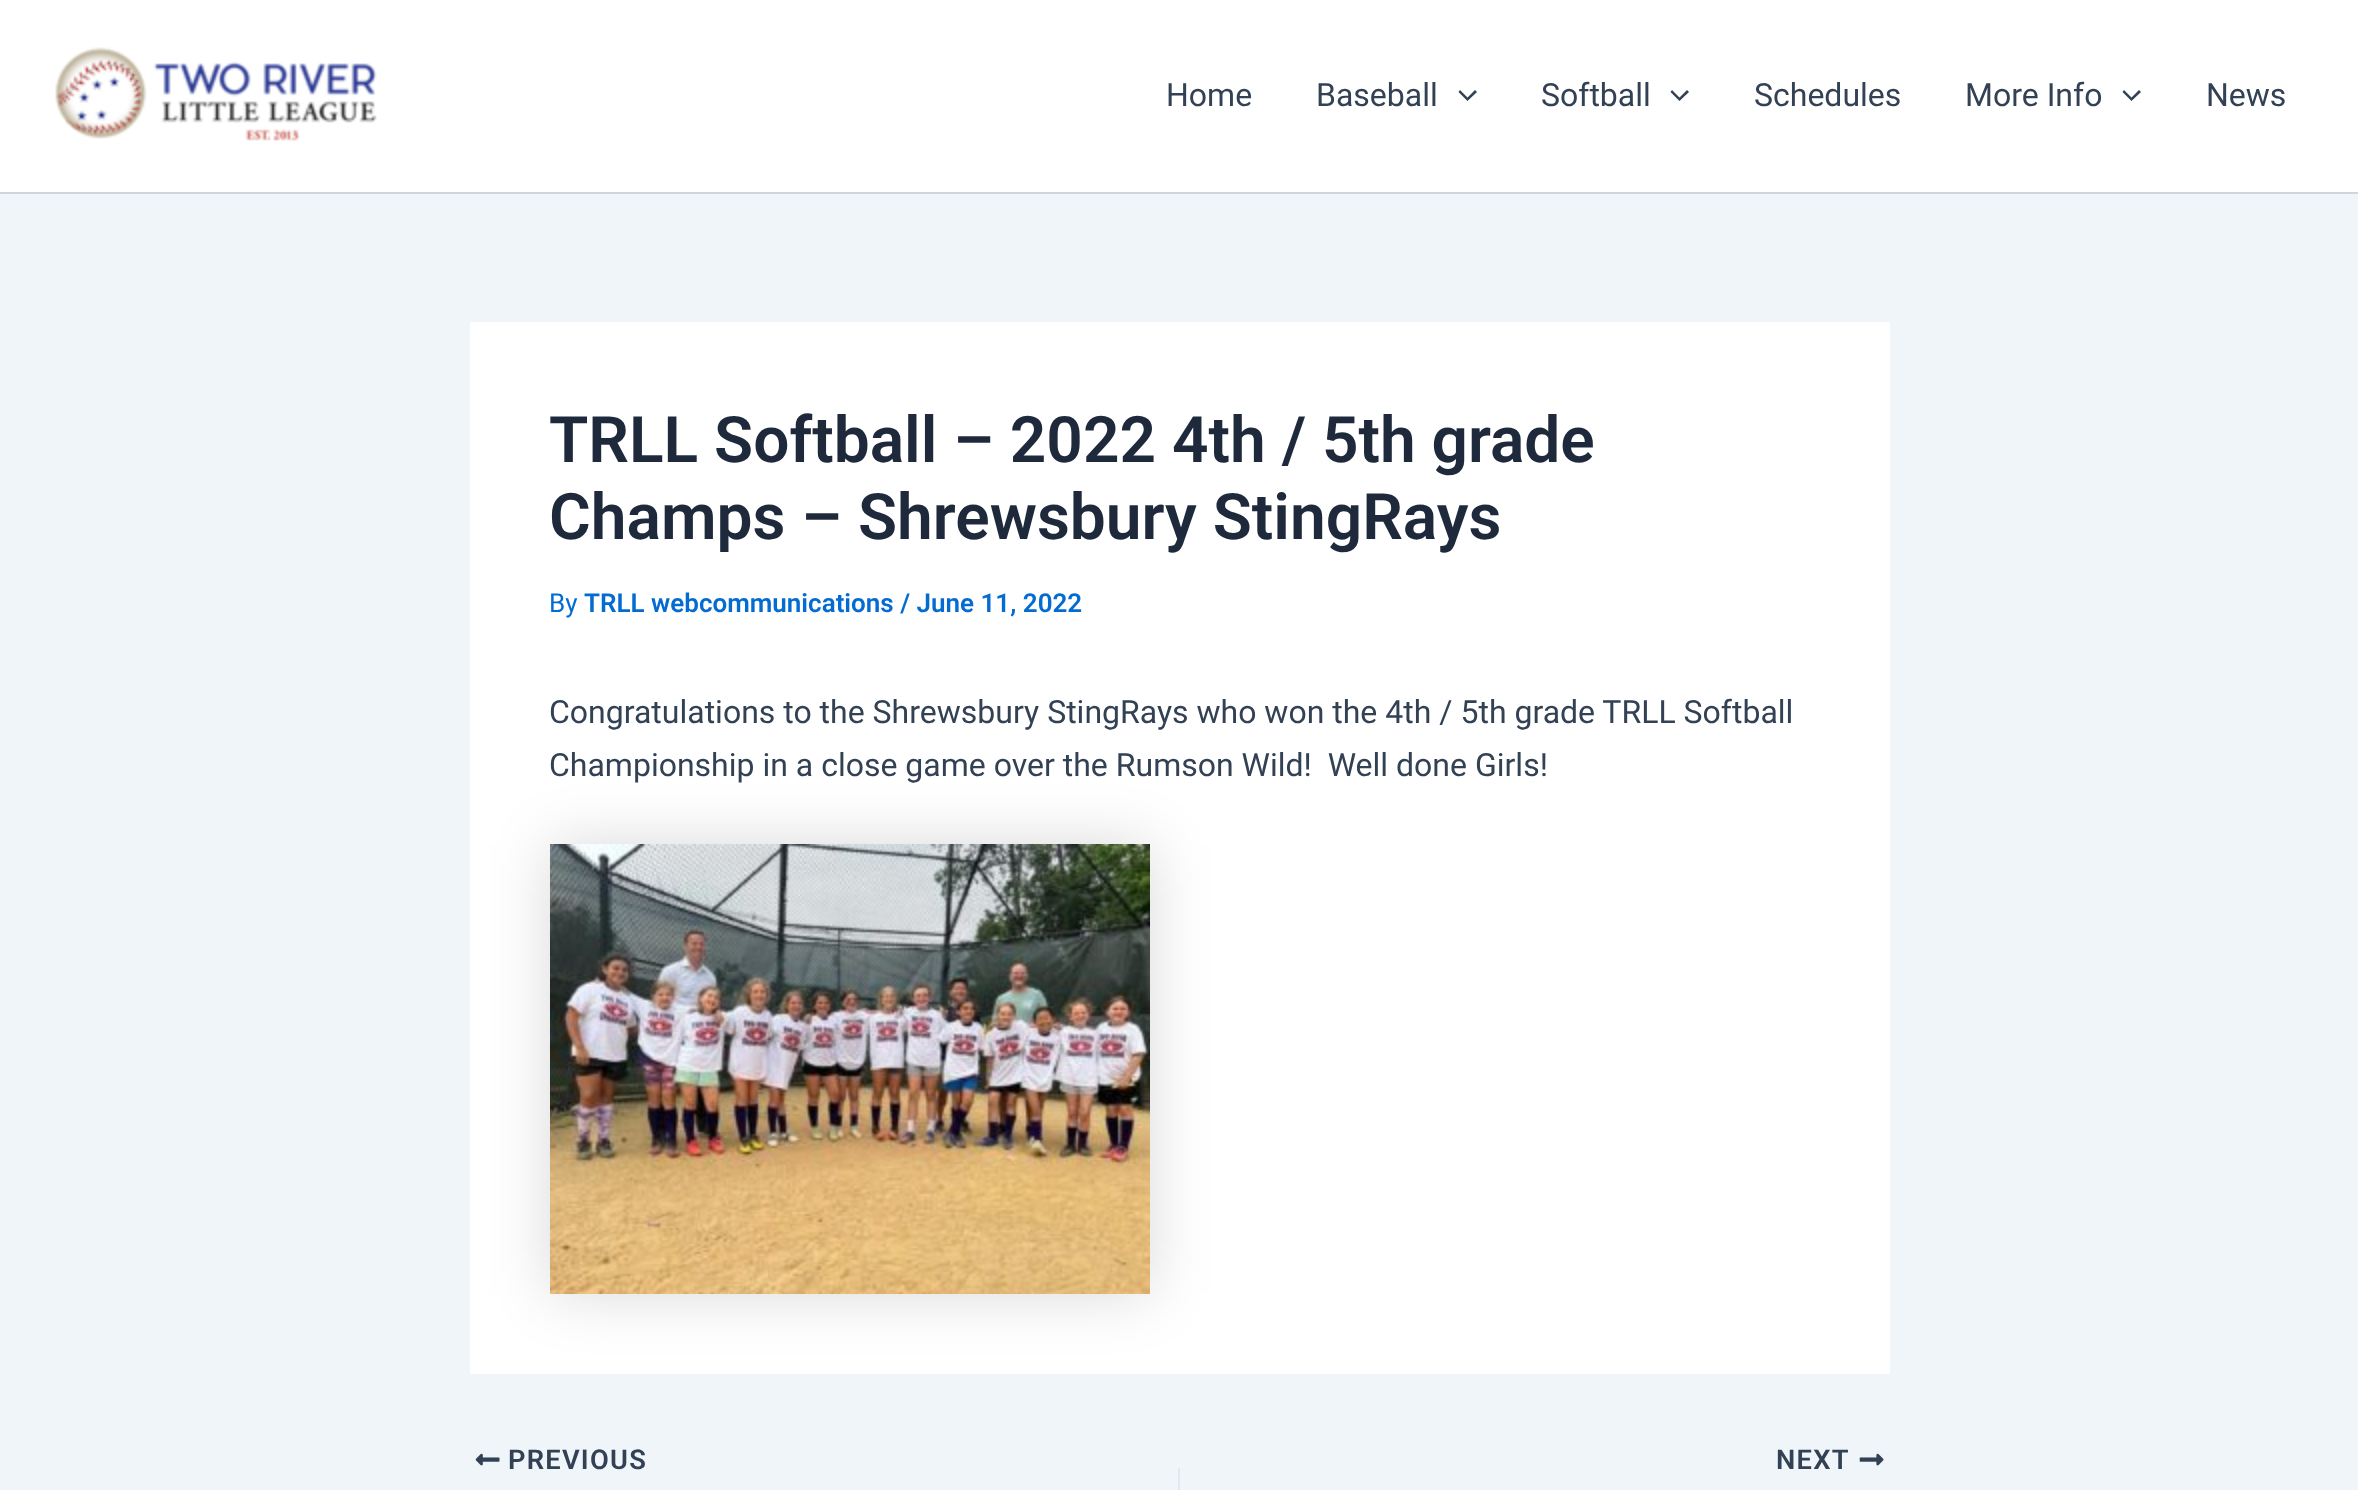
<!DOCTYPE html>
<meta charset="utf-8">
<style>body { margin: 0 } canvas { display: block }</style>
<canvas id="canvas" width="2358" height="1490"></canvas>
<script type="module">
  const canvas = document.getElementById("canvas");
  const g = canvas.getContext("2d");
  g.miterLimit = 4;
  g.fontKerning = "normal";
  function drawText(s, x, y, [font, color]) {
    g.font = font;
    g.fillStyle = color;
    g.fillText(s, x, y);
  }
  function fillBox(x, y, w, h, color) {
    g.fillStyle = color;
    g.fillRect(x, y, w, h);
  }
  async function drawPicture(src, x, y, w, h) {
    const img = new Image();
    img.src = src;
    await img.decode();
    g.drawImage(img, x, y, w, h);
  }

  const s1 = ["32px Roboto", "#334155"];
  const s2 = ["600 64px Roboto", "#1E293B"];
  const s3 = ["26px Roboto", "#046BD2"];
  const s4 = ["600 26px Roboto", "#046BD2"];
  const s5 = ["600 27.25px Roboto", "#334155"];

  fillBox(0, 0, 2358, 1490, "#F0F5FA");
  fillBox(0, 0, 2358, 192, "#FFFFFF");
  fillBox(0, 192, 2358, 2, "#D1D5DB");
  await drawPicture("pic1.png", 55, 47, 322, 95);
  drawText("Home", 1166, 106, s1);
  drawText("Baseball", 1316, 106, s1);
  g.beginPath();
  g.moveTo(1458.5, 92);
  g.lineTo(1467.5, 101);
  g.lineTo(1477, 92);
  g.lineTo(1475, 90);
  g.lineTo(1467.5, 97.5);
  g.lineTo(1460, 90);
  g.closePath();
  g.fill();
  drawText("Softball", 1541, 106, s1);
  g.beginPath();
  g.moveTo(1670.5, 92);
  g.lineTo(1679.5, 101);
  g.lineTo(1689, 92);
  g.lineTo(1687, 90);
  g.lineTo(1679.5, 97.5);
  g.lineTo(1672, 90);
  g.closePath();
  g.fill();
  drawText("Schedules", 1754, 106, s1);
  drawText("More Info", 1965, 106, s1);
  g.beginPath();
  g.moveTo(2122.5, 92);
  g.lineTo(2131.5, 101);
  g.lineTo(2141, 92);
  g.lineTo(2139, 90);
  g.lineTo(2131.5, 97.5);
  g.lineTo(2124, 90);
  g.closePath();
  g.fill();
  drawText("News", 2206, 106, s1);
  fillBox(470, 322, 1420, 1052, "#FFFFFF");
  drawText("TRLL Softball – 2022 4th / 5th grade", 549, 462, s2);
  drawText("Champs – Shrewsbury StingRays", 549, 539, s2);
  drawText("By", 549, 612, s3);
  drawText("TRLL webcommunications / June 11, 2022", 584, 612, s4);
  drawText("Congratulations to the Shrewsbury StingRays who won the 4th / 5th grade TRLL Softball", 549, 723, s1);
  drawText("Championship in a close game over the Rumson Wild!  Well done Girls!", 549, 776, s1);
  g.fillStyle = "rgba(0, 0, 0, 0.15)";
  g.filter = "blur(30px)";
  g.beginPath();
  g.rect(550, 844, 600, 450);
  g.fill();
  g.filter = "none";
  await drawPicture("pic2.png", 550, 844, 600, 450);
  await drawPicture("pic3.png", 475, 1453, 25, 13);
  g.letterSpacing = "1.25px";
  drawText("PREVIOUS", 508, 1469, s5);
  fillBox(1178, 1468, 2, 22, "#E1E8ED");
  drawText("NEXT", 1776, 1469, s5);
  await drawPicture("pic4.png", 1859, 1453, 25, 13);
</script>
